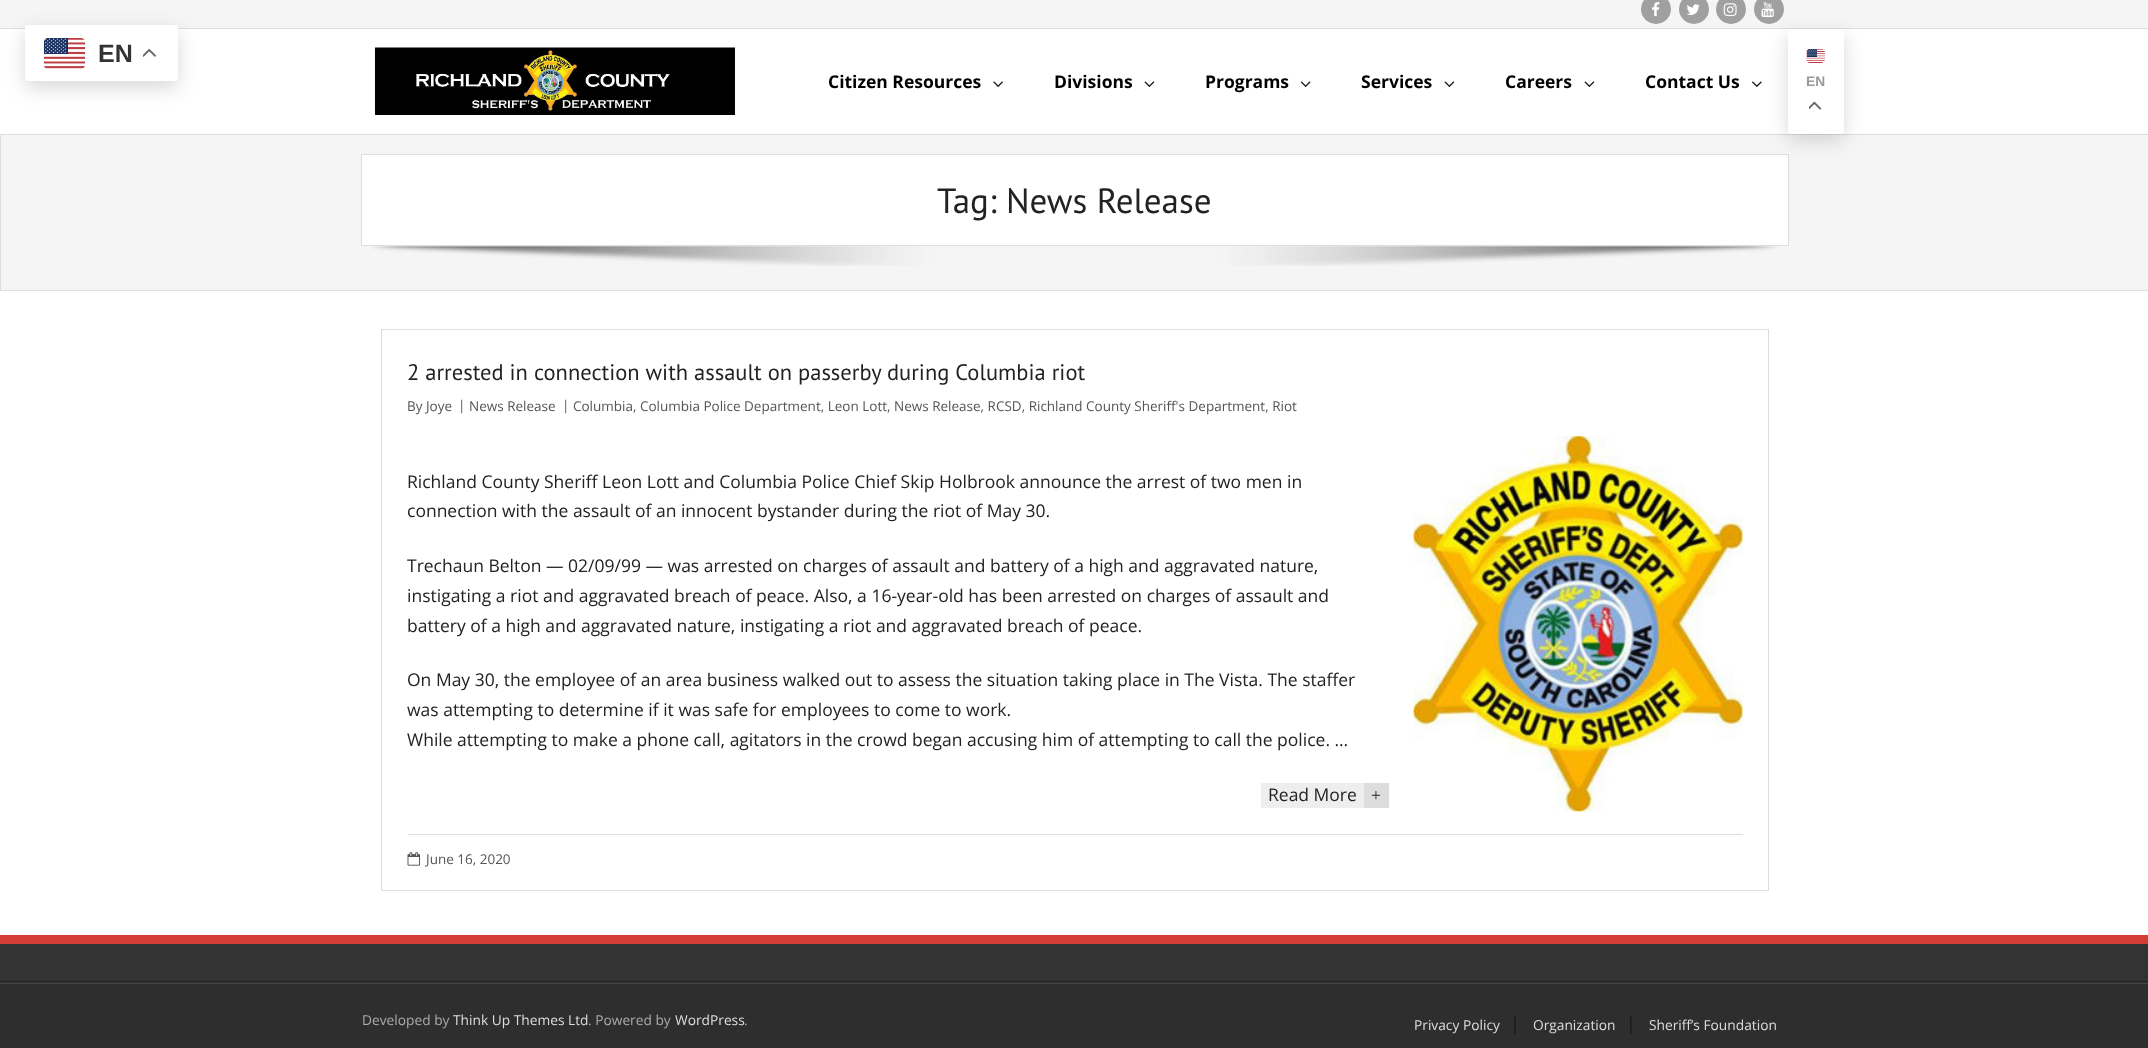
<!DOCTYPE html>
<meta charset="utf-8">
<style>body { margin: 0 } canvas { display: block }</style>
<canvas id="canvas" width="2148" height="1048"></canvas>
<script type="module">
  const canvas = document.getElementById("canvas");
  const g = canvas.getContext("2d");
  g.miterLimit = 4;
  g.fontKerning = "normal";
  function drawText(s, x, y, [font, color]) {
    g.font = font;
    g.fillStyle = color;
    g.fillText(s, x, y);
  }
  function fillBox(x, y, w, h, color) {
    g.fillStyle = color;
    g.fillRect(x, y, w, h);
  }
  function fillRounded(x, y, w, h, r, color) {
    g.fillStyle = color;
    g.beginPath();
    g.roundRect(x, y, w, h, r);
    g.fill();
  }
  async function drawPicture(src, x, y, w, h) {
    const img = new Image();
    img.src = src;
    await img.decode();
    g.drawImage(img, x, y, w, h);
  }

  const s1 = ["bold 25px Liberation Sans", "#333333"];
  const s2 = ["bold 17.5px Open Sans", "#000000"];
  const s3 = ["bold 13.75px Liberation Sans", "#999999"];
  const s4 = ["35px PT Sans", "#222222"];
  const s5 = ["22.5px PT Sans", "#222222"];
  const s6 = ["13.5px Open Sans", "#555555"];
  const s7 = ["17.5px Open Sans", "#222222"];
  const s8 = ["17.5px Liberation Serif", "#222222"];
  const s9 = ["13.75px Open Sans", "#AAAAAA"];
  const s10 = ["13.75px Open Sans", "#DDDDDD"];
  const s11 = ["17.5px Open Sans", "#171717"];

  fillBox(0, 0, 2148, 1048, "#FFFFFF");
  fillBox(0, 0, 2148, 28, "#F5F5F5");
  fillBox(0, 28, 2148, 1, "#DDDDDD");
  g.fillStyle = "rgba(0, 0, 0, 0.15)";
  g.filter = "blur(9.5px)";
  g.beginPath();
  g.roundRect(25, 31, 153, 57, 2.5);
  g.fill();
  g.filter = "none";
  fillRounded(25, 25, 153, 56, 2.5, "#FFFFFF");
  await drawPicture("pic1.png", 44, 38, 41, 31);
  drawText("EN", 98, 62, s1);
  await drawPicture("pic2.png", 143, 48, 13, 9);
  fillBox(0, 134, 2148, 1, "#DDDDDD");
  g.fillStyle = "#A0A0A0";
  g.beginPath();
  g.arc(1656, 9, 15, 0, Math.PI * 2);
  g.fill();
  await drawPicture("pic3.png", 1652, 2, 8, 15);
  g.beginPath();
  g.arc(1694, 9, 15, 0, Math.PI * 2);
  g.fill();
  await drawPicture("pic4.png", 1687, 4, 13, 11);
  g.beginPath();
  g.arc(1731, 9, 15, 0, Math.PI * 2);
  g.fill();
  await drawPicture("pic5.png", 1723, 3, 14, 14);
  g.beginPath();
  g.arc(1769, 9, 15, 0, Math.PI * 2);
  g.fill();
  await drawPicture("pic6.png", 1761, 2, 13, 16);
  await drawPicture("pic7.png", 375, 47, 360, 68);
  drawText("Citizen Resources", 828, 88, s2);
  await drawPicture("pic8.png", 993, 81, 10, 6);
  drawText("Divisions", 1054, 88, s2);
  await drawPicture("pic9.png", 1144, 81, 11, 6);
  drawText("Programs", 1205, 88, s2);
  await drawPicture("pic10.png", 1300, 81, 11, 6);
  drawText("Services", 1361, 88, s2);
  await drawPicture("pic9.png", 1444, 81, 11, 6);
  drawText("Careers", 1505, 88, s2);
  await drawPicture("pic9.png", 1584, 81, 11, 6);
  drawText("Contact Us", 1645, 88, s2);
  await drawPicture("pic11.png", 1752, 81, 10, 6);
  fillBox(1, 135, 2147, 155, "#F5F5F5");
  g.fillStyle = "#FFFFFF";
  g.beginPath();
  g.rect(361.5, 154.5, 1427, 91);
  g.fill();
  g.strokeStyle = "#DDDDDD";
  g.stroke();
  g.fillStyle = "rgba(0, 0, 0, 0.15)";
  g.filter = "blur(9.5px)";
  g.beginPath();
  g.roundRect(1788, 35, 56, 105, 2.5);
  g.fill();
  g.filter = "none";
  fillRounded(1788, 29, 56, 105, 2.5, "#FFFFFF");
  await drawPicture("pic12.png", 1806, 49, 19, 14);
  drawText("EN", 1806, 86, s3);
  await drawPicture("pic13.png", 1809, 101, 13, 9);
  fillBox(0, 290, 2148, 1, "#DDDDDD");
  fillBox(0, 135, 1, 156, "#DDDDDD");
  drawText("Tag: News Release", 937, 213, s4);
  await drawPicture("pic14.png", 372, 246, 1406, 20);
  g.strokeRect(381.5, 329.5, 1387, 561);
  drawText("2 arrested in connection with assault on passerby during Columbia riot", 407, 380, s5);
  drawText("By Joye", 407, 411, s6);
  drawText("|", 458, 410, s6);
  drawText("News Release", 469, 411, s6);
  drawText("|", 562, 410, s6);
  drawText("Columbia, Columbia Police Department, Leon Lott, News Release, RCSD, Richland County Sheriff's Department, Riot", 573, 411, s6);
  drawText("Richland County Sheriff Leon Lott and Columbia Police Chief Skip Holbrook announce the arrest of two men in", 407, 488, s7);
  await drawPicture("pic15.png", 1413, 436, 330, 376);
  drawText("connection with the assault of an innocent bystander during the riot of May 30.", 407, 517, s7);
  drawText("Trechaun Belton — 02/09/99 — was arrested on charges of assault and battery of a high and aggravated nature,", 407, 572, s7);
  drawText("instigating a riot and aggravated breach of peace. Also, a 16-year-old has been arrested on charges of assault and", 407, 602, s7);
  drawText("battery of a high and aggravated nature, instigating a riot and aggravated breach of peace.", 407, 632, s7);
  drawText("On May 30, the employee of an area business walked out to assess the situation taking place in The Vista. The staffer", 407, 686, s7);
  drawText("was attempting to determine if it was safe for employees to come to work.", 407, 716, s7);
  drawText("While attempting to make a phone call, agitators in the crowd began accusing him of attempting to call the police. …", 407, 746, s7);
  fillBox(1261, 783, 103, 25, "#EEEEEE");
  drawText("Read More", 1268, 801, s7);
  fillBox(1364, 783, 25, 25, "#DDDDDD");
  drawText("+", 1371, 801, s8);
  fillBox(408, 834, 1335, 1, "#DDDDDD");
  await drawPicture("pic16.png", 407, 852, 14, 14);
  drawText("June 16, 2020", 426, 864, s6);
  fillBox(0, 944, 2148, 39, "#333333");
  fillBox(0, 935, 2148, 9, "#D33D33");
  fillBox(0, 981, 2148, 1, "#222222");
  fillBox(0, 984, 2148, 64, "#2E2E2E");
  fillBox(0, 983, 2148, 1, "#444444");
  drawText("Developed by", 362, 1025, s9);
  drawText("Think Up Themes Ltd", 453, 1025, s10);
  drawText(". Powered by", 588, 1025, s9);
  drawText("WordPress", 675, 1025, s10);
  drawText(".", 744, 1025, s9);
  drawText("Privacy Policy", 1414, 1030, s10);
  drawText("|", 1510, 1030, s11);
  drawText("Organization", 1533, 1030, s10);
  drawText("|", 1626, 1030, s11);
  drawText("Sheriff’s Foundation", 1649, 1030, s10);
</script>
